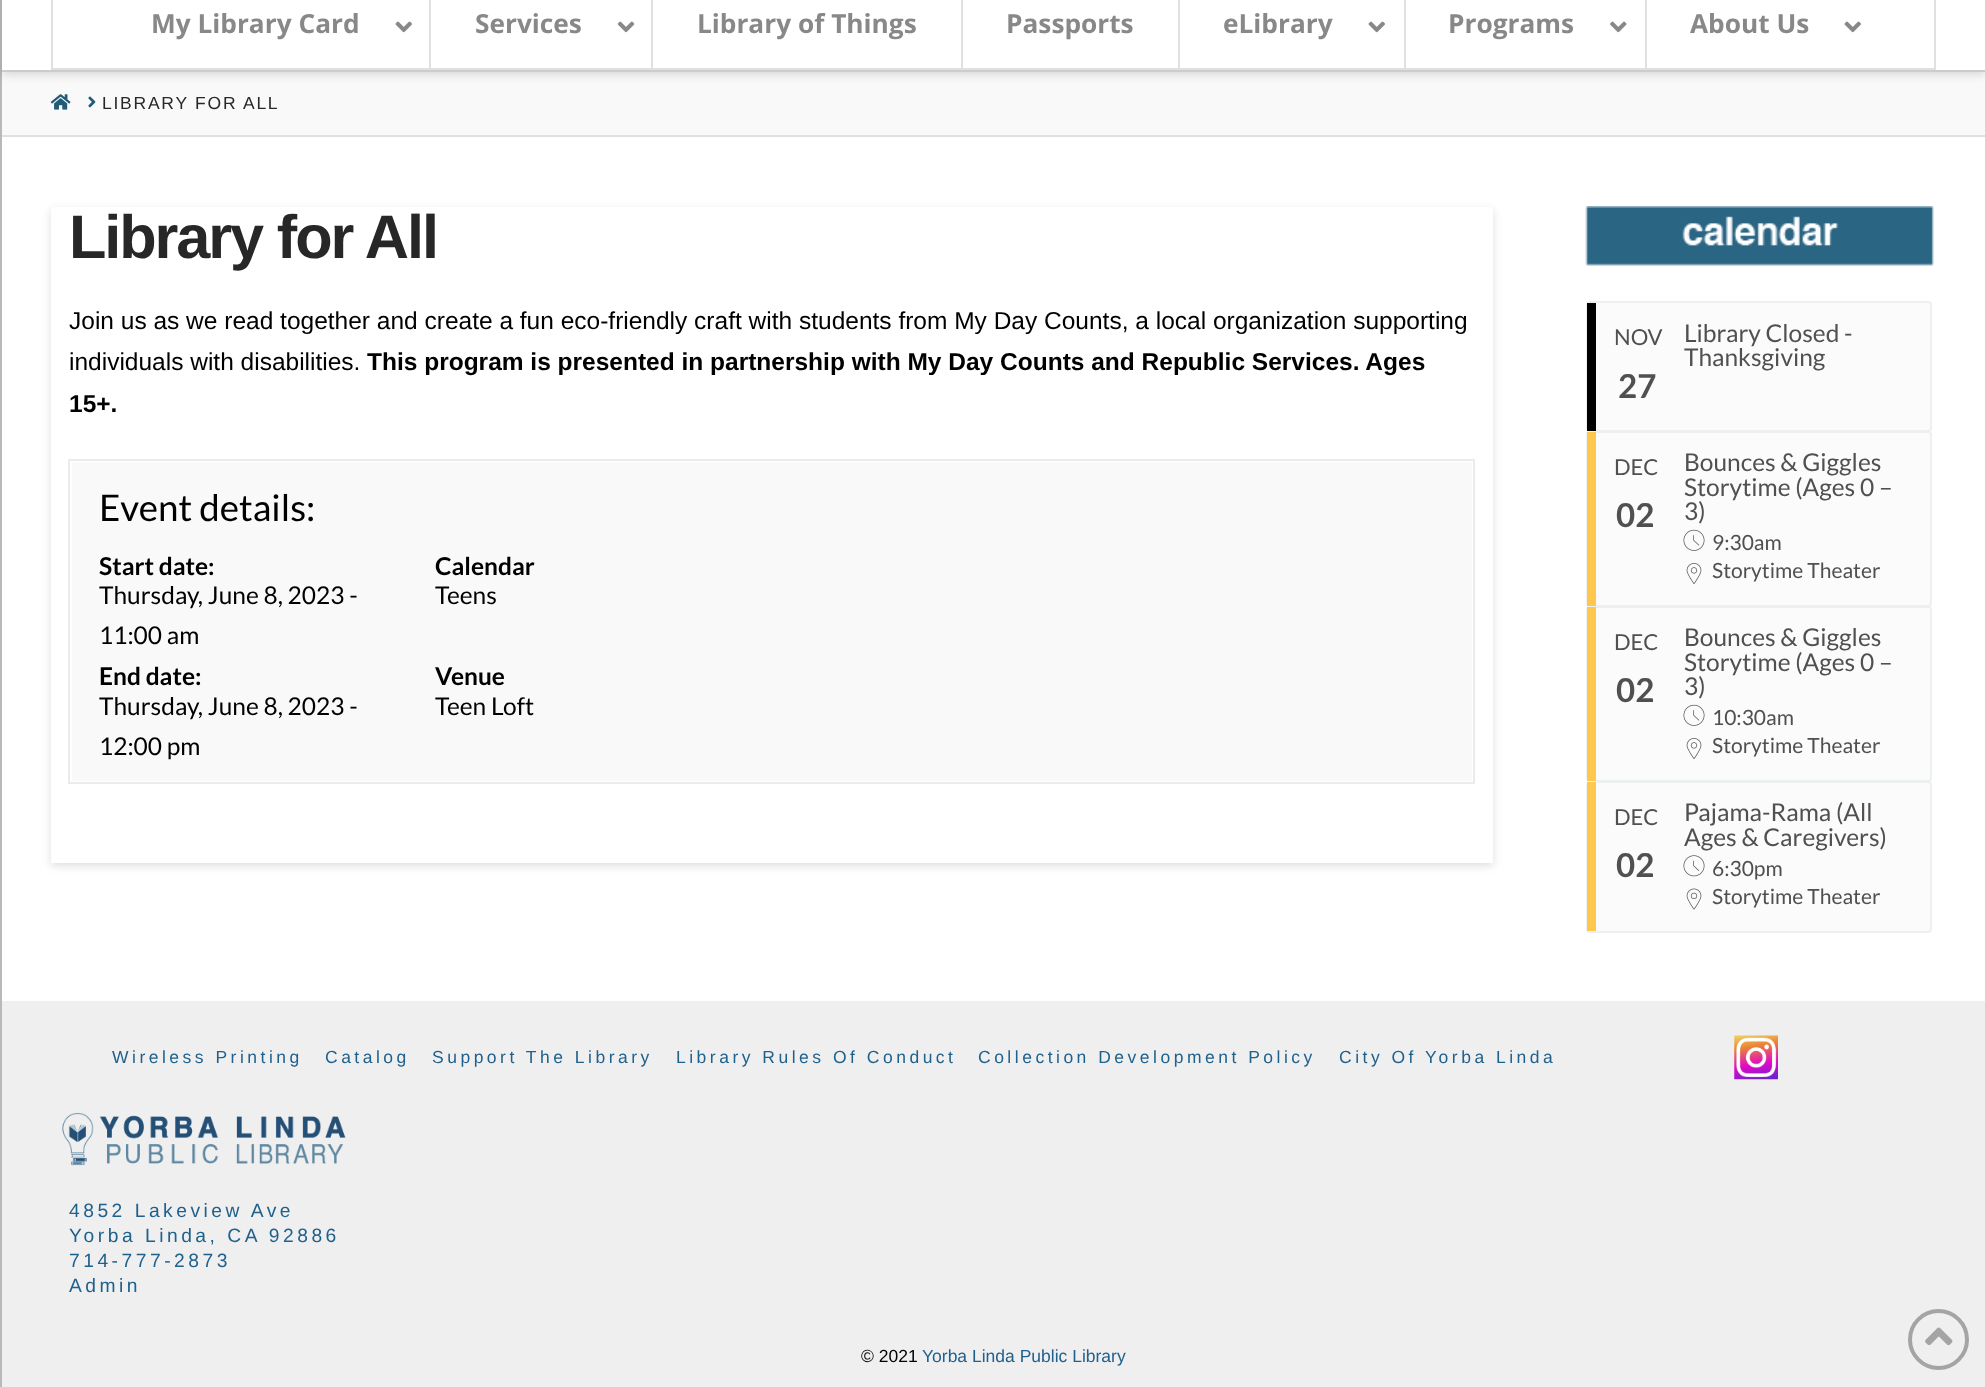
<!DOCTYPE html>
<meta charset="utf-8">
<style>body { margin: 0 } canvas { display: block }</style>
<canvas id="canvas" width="1985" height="1387"></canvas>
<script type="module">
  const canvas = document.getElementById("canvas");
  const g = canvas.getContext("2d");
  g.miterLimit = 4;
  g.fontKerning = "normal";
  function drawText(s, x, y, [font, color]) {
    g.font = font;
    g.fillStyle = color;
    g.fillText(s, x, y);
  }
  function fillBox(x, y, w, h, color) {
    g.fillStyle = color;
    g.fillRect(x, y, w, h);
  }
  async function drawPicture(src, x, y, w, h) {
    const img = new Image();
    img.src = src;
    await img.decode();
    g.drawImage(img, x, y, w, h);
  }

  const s1 = ["bold 26.25px Open Sans", "#888888"];
  const s2 = ["17.5px Liberation Sans", "#272727"];
  const s3 = ["bold 61.25px Liberation Sans", "#272727"];
  const s4 = ["24.5px Liberation Sans", "#000000"];
  const s5 = ["bold 24.5px Liberation Sans", "#000000"];
  const s6 = ["36.75px Lato", "#000000"];
  const s7 = ["bold 24.5px Lato", "#000000"];
  const s8 = ["24.5px Lato", "#000000"];
  const s9 = ["22px Lato", "#505050"];
  const s10 = ["bold 33px Lato", "#505050"];
  const s11 = ["24.5px Lato", "#505050"];
  const s12 = ["21px Lato", "#505050"];
  const s13 = ["17.5px Liberation Sans", "#1F618D"];
  const s14 = ["19.25px Liberation Sans", "#1F618D"];
  const s15 = ["17.5px Liberation Sans", "#000000"];

  fillBox(0, 0, 1985, 1387, "#FFFFFF");
  fillBox(0, 0, 2, 1387, "#B9B9B9");
  fillBox(2, 72, 1983, 63, "#F9F9F9");
  g.save();
  g.beginPath();
  g.moveTo(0, 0);
  g.lineTo(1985, 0);
  g.lineTo(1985, 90);
  g.lineTo(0, 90);
  g.closePath();
  g.moveTo(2, -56);
  g.lineTo(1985, -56);
  g.lineTo(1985, 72);
  g.lineTo(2, 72);
  g.closePath();
  g.clip("evenodd");
  g.fillStyle = "rgba(0, 0, 0, 0.13)";
  g.filter = "blur(4.5px)";
  g.beginPath();
  g.rect(2, -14, 1983, 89);
  g.fill();
  g.filter = "none";
  g.restore();
  fillBox(2, 70, 1983, 2, "#CCCCCC");
  g.strokeStyle = "#E0E0E0";
  g.lineWidth = 2;
  g.strokeRect(52, -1, 1883, 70);
  drawText("My Library Card", 151, 33, s1);
  await drawPicture("pic1.png", 395, 21, 17, 12);
  fillBox(429, 0, 2, 68, "#E0E0E0");
  drawText("Services", 475, 33, s1);
  await drawPicture("pic2.png", 617, 21, 18, 12);
  fillBox(651, 0, 2, 68, "#E0E0E0");
  drawText("Library of Things", 697, 33, s1);
  fillBox(961, 0, 2, 68, "#E0E0E0");
  drawText("Passports", 1006, 33, s1);
  fillBox(1178, 0, 2, 68, "#E0E0E0");
  drawText("eLibrary", 1223, 33, s1);
  await drawPicture("pic1.png", 1368, 21, 17, 12);
  fillBox(1404, 0, 2, 68, "#E0E0E0");
  drawText("Programs", 1448, 33, s1);
  await drawPicture("pic3.png", 1610, 21, 17, 12);
  fillBox(1645, 0, 2, 68, "#E0E0E0");
  drawText("About Us", 1690, 33, s1);
  await drawPicture("pic1.png", 1844, 21, 17, 12);
  fillBox(2, 135, 1983, 2, "#E0E0E0");
  await drawPicture("pic4.png", 50, 94, 21, 16);
  await drawPicture("pic5.png", 88, 96, 8, 12);
  g.letterSpacing = "1.75px";
  drawText("LIBRARY FOR ALL", 102, 109, s2);
  g.fillStyle = "rgba(0, 0, 0, 0.13)";
  g.filter = "blur(4.5px)";
  g.beginPath();
  g.rect(51, 210, 1442, 656);
  g.fill();
  g.filter = "none";
  fillBox(51, 207, 1442, 656, "#FFFFFF");
  g.letterSpacing = "-2.1px";
  drawText("Library for All", 69, 258, s3);
  g.letterSpacing = "0px";
  drawText("Join us as we read together and create a fun eco-friendly craft with students from My Day Counts, a local organization supporting", 69, 329, s4);
  drawText("individuals with disabilities.", 69, 370, s4);
  drawText("This program is presented in partnership with My Day Counts and Republic Services. Ages", 367, 370, s5);
  drawText("15+.", 69, 412, s5);
  g.strokeStyle = "#EBEBEB";
  g.strokeRect(69, 460, 1405, 323);
  fillBox(72, 462, 1400, 319, "#F9F9F9");
  drawText("Event details:", 99, 521, s6);
  drawText("Start date:", 99, 575, s7);
  drawText("Thursday, June 8, 2023 -", 99, 604, s8);
  drawText("11:00 am", 99, 644, s8);
  drawText("Calendar", 435, 575, s7);
  drawText("Teens", 435, 604, s8);
  drawText("End date:", 99, 685, s7);
  drawText("Thursday, June 8, 2023 -", 99, 715, s8);
  drawText("12:00 pm", 99, 755, s8);
  drawText("Venue", 435, 685, s7);
  drawText("Teen Loft", 435, 715, s8);
  await drawPicture("pic6.png", 1585, 206, 349, 60);
  g.fillStyle = "#FBFBFB";
  g.beginPath();
  g.roundRect(1587, 302, 344, 129, 3);
  g.fill();
  g.strokeStyle = "#ECF0F1";
  g.stroke();
  fillBox(1587, 303, 9, 128, "#000000");
  drawText("NOV", 1614, 345, s9);
  drawText("27", 1618, 398, s10);
  drawText("Library Closed -", 1684, 342, s11);
  drawText("Thanksgiving", 1684, 366, s11);
  g.fillStyle = "#FBFBFB";
  g.beginPath();
  g.roundRect(1587, 432, 344, 174, 3);
  g.fill();
  g.stroke();
  fillBox(1587, 432, 9, 174, "#FFC84D");
  drawText("DEC", 1614, 475, s9);
  drawText("02", 1616, 527, s10);
  drawText("Bounces & Giggles", 1684, 471, s11);
  drawText("Storytime (Ages 0 –", 1684, 496, s11);
  drawText("3)", 1684, 520, s11);
  await drawPicture("pic7.png", 1683, 529, 22, 22);
  drawText("9:30am", 1712, 550, s12);
  await drawPicture("pic8.png", 1686, 563, 16, 21);
  drawText("Storytime Theater", 1712, 578, s12);
  g.fillStyle = "#FBFBFB";
  g.beginPath();
  g.roundRect(1587, 607, 344, 174, 3);
  g.fill();
  g.stroke();
  fillBox(1587, 607, 9, 174, "#FFC84D");
  drawText("DEC", 1614, 650, s9);
  drawText("02", 1616, 702, s10);
  drawText("Bounces & Giggles", 1684, 646, s11);
  drawText("Storytime (Ages 0 –", 1684, 671, s11);
  drawText("3)", 1684, 695, s11);
  await drawPicture("pic7.png", 1683, 704, 22, 22);
  drawText("10:30am", 1712, 725, s12);
  await drawPicture("pic8.png", 1686, 738, 16, 21);
  drawText("Storytime Theater", 1712, 753, s12);
  g.fillStyle = "#FBFBFB";
  g.beginPath();
  g.roundRect(1587, 782, 344, 150, 3);
  g.fill();
  g.stroke();
  fillBox(1587, 782, 9, 149, "#FFC84D");
  drawText("DEC", 1614, 825, s9);
  drawText("02", 1616, 877, s10);
  drawText("Pajama-Rama (All", 1684, 821, s11);
  drawText("Ages & Caregivers)", 1684, 846, s11);
  await drawPicture("pic9.png", 1683, 855, 22, 22);
  drawText("6:30pm", 1712, 876, s12);
  await drawPicture("pic10.png", 1686, 888, 16, 22);
  drawText("Storytime Theater", 1712, 904, s12);
  fillBox(2, 1001, 1983, 386, "#F0EFEF");
  g.letterSpacing = "3.5px";
  drawText("Wireless Printing", 112, 1063, s13);
  drawText("Catalog", 325, 1063, s13);
  drawText("Support The Library", 432, 1063, s13);
  drawText("Library Rules Of Conduct", 676, 1063, s13);
  drawText("Collection Development Policy", 978, 1063, s13);
  drawText("City Of Yorba Linda", 1339, 1063, s13);
  await drawPicture("pic11.png", 1734, 1035, 44, 45);
  await drawPicture("pic12.png", 62, 1112, 284, 54);
  drawText("4852 Lakeview Ave", 69, 1217, s14);
  drawText("Yorba Linda, CA 92886", 69, 1242, s14);
  drawText("714-777-2873", 69, 1267, s14);
  drawText("Admin", 69, 1292, s14);
  g.letterSpacing = "0px";
  drawText("© 2021", 861, 1362, s15);
  drawText("Yorba Linda Public Library", 922, 1362, s13);
  g.beginPath();
  g.arc(1938.5, 1339.5, 28.5, 0, Math.PI * 2);
  g.strokeStyle = "#A5A4A4";
  g.lineWidth = 4;
  g.stroke();
  await drawPicture("pic13.png", 1925, 1327, 28, 19);
</script>
